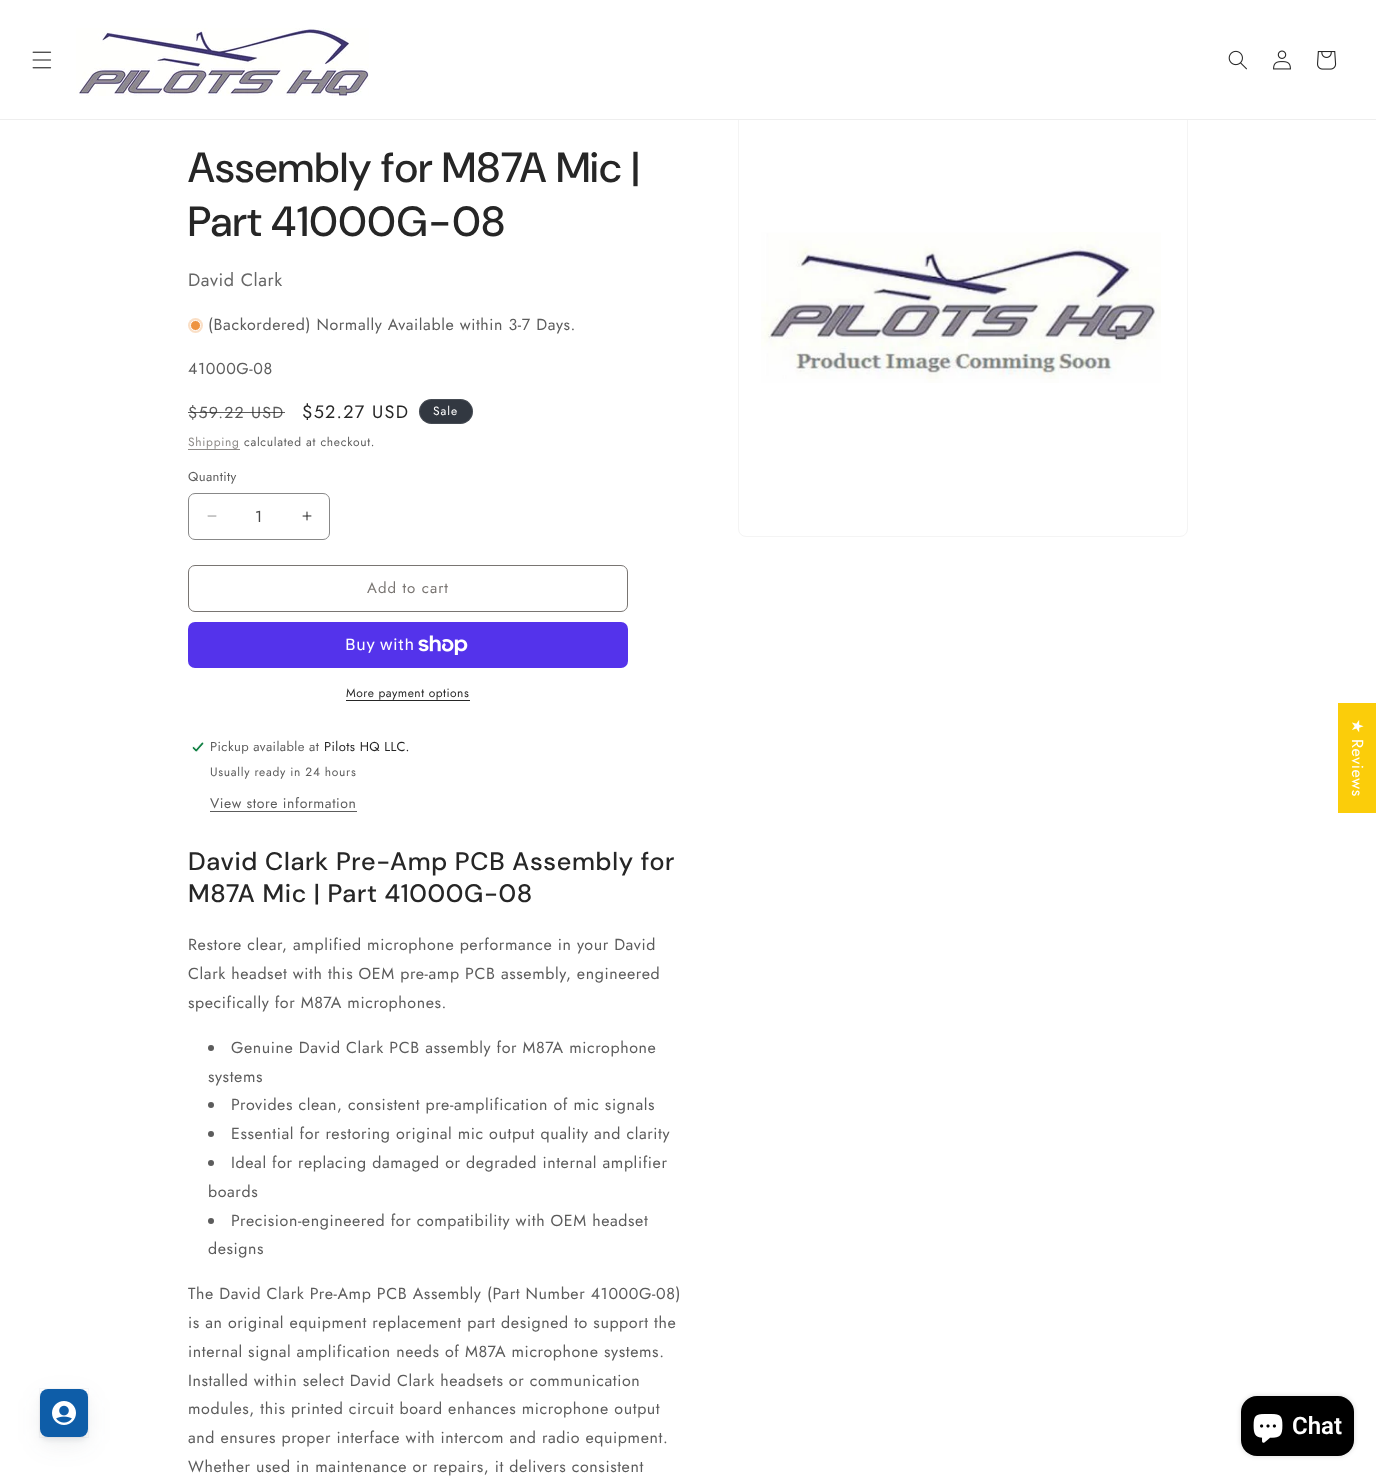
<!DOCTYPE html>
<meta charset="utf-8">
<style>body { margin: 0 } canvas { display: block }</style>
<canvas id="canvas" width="1376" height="1477"></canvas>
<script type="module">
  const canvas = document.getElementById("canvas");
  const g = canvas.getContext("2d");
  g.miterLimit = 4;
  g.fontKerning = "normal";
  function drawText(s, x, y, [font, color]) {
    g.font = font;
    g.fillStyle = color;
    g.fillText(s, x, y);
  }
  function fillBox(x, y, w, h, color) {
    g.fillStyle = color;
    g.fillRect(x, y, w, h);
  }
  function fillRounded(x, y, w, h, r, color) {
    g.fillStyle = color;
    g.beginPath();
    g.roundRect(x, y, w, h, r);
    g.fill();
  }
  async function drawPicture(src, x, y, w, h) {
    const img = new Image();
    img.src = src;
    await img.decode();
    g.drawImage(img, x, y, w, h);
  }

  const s1 = ["500 42px DM Sans", "#262626"];
  const s2 = ["18px Jost", "#676767"];
  const s3 = ["16px Jost", "#5C5C5C"];
  const s4 = ["18px Jost", "#262626"];
  const s5 = ["12px Jost", "#FFFFFF"];
  const s6 = ["12px Jost", "#8D8A87"];
  const s7 = ["12px Jost", "#5C5C5C"];
  const s8 = ["13px Jost", "#5C5C5C"];
  const s9 = ["16px Jost", "#474747"];
  const s10 = ["15px Jost", "#797572"];
  const s11 = ["16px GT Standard", "#FFFFFF"];
  const s12 = ["12px Jost", "#262626"];
  const s13 = ["13px Jost", "#262626"];
  const s14 = ["14px Jost", "#5C5C5C"];
  const s15 = ["500 25.25px 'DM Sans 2'", "#262626"];
  const s16 = ["600 24px Roboto", "#FFFFFF"];

  fillBox(0, 0, 1376, 1477, "#FFFFFF");
  g.beginPath();
  g.roundRect(738.5, 87.5, 449, 449, 7.5);
  g.strokeStyle = "#F4F4F4";
  g.stroke();
  fillBox(738, 87, 450, 32, "#FFFFFF");
  fillBox(0, 119, 1376, 1, "#EEEEEE");
  await drawPicture("pic1.png", 32, 51, 20, 18);
  await drawPicture("pic2.png", 76, 28, 293, 68);
  await drawPicture("pic3.png", 1228, 50, 19, 20);
  await drawPicture("pic4.png", 1273, 50, 18, 20);
  await drawPicture("pic5.png", 1317, 51, 20, 19);
  g.letterSpacing = "0.65px";
  drawText("Assembly for M87A Mic |", 188, 182, s1);
  drawText("Part 41000G-08", 188, 236, s1);
  g.letterSpacing = "0.6px";
  drawText("David Clark", 188, 286, s2);
  g.fillStyle = "#FADFC6";
  g.beginPath();
  g.arc(195.5, 325.5, 7.5, 0, Math.PI * 2);
  g.fill();
  g.fillStyle = "#EE9441";
  g.beginPath();
  g.arc(195.5, 325.5, 5, 0, Math.PI * 2);
  g.fill();
  g.strokeStyle = "#FFFFFF";
  g.stroke();
  drawText("(Backordered) Normally Available within 3-7 Days.", 208, 330, s3);
  drawText("41000G-08", 188, 374, s3);
  g.letterSpacing = "1.25px";
  drawText("$59.22 USD", 188, 418, s3);
  fillBox(188, 412, 97, 1, "rgba(38, 38, 38, 0.75)");
  drawText("$52.27 USD", 302, 418, s4);
  fillRounded(419, 399, 54, 25, 12.5, "#323841");
  g.beginPath();
  g.roundRect(419.5, 399.5, 53, 24, 12);
  g.strokeStyle = "rgba(255, 255, 255, 0.1)";
  g.stroke();
  g.letterSpacing = "1px";
  drawText("Sale", 433, 415, s5);
  g.letterSpacing = "0.7px";
  drawText("Shipping", 188, 446, s6);
  fillBox(188, 449, 52, 1, "#8D8A87");
  drawText("calculated at checkout.", 244, 446, s7);
  g.letterSpacing = "0.4px";
  drawText("Quantity", 188, 481, s8);
  await drawPicture("pic6.png", 207, 515, 10, 2);
  await drawPicture("pic7.png", 302, 511, 10, 10);
  g.beginPath();
  g.roundRect(188.5, 493.5, 141, 46, 6.5);
  g.strokeStyle = "#888888";
  g.stroke();
  g.letterSpacing = "0px";
  drawText("1", 255, 522, s9);
  g.beginPath();
  g.roundRect(188.5, 565.5, 439, 46, 6.5);
  g.strokeStyle = "#797572";
  g.stroke();
  g.letterSpacing = "1px";
  drawText("Add to cart", 367, 593, s10);
  fillRounded(188, 622, 440, 46, 7, "#5433EB");
  g.letterSpacing = "0.6px";
  drawText("Buy with", 345, 650, s11);
  await drawPicture("pic8.png", 418, 635, 50, 20);
  g.letterSpacing = "0.5px";
  drawText("More payment options", 346, 697, s12);
  fillBox(346, 700, 124, 1, "#262626");
  await drawPicture("pic9.png", 192, 742, 12, 10);
  g.letterSpacing = "0.4px";
  drawText("Pickup available at", 210, 751, s8);
  drawText("Pilots HQ LLC.", 324, 751, s13);
  g.letterSpacing = "0.7px";
  drawText("Usually ready in 24 hours", 210, 776, s7);
  g.letterSpacing = "0.6px";
  drawText("View store information", 210, 808, s14);
  fillBox(210, 811, 147, 1, "#5C5C5C");
  g.letterSpacing = "0.65px";
  drawText("David Clark Pre-Amp PCB Assembly for", 188, 870, s15);
  drawText("M87A Mic | Part 41000G-08", 188, 902, s15);
  g.letterSpacing = "0.6px";
  drawText("Restore clear, amplified microphone performance in your David", 188, 950, s3);
  drawText("Clark headset with this OEM pre-amp PCB assembly, engineered", 188, 979, s3);
  drawText("specifically for M87A microphones.", 188, 1008, s3);
  g.beginPath();
  g.arc(211, 1048, 3, 0, Math.PI * 2);
  g.fill();
  drawText("Genuine David Clark PCB assembly for M87A microphone", 231, 1053, s3);
  drawText("systems", 208, 1082, s3);
  g.beginPath();
  g.arc(211, 1105, 3, 0, Math.PI * 2);
  g.fill();
  drawText("Provides clean, consistent pre-amplification of mic signals", 231, 1110, s3);
  g.beginPath();
  g.arc(211, 1134, 3, 0, Math.PI * 2);
  g.fill();
  drawText("Essential for restoring original mic output quality and clarity", 231, 1139, s3);
  g.beginPath();
  g.arc(211, 1163, 3, 0, Math.PI * 2);
  g.fill();
  drawText("Ideal for replacing damaged or degraded internal amplifier", 231, 1168, s3);
  drawText("boards", 208, 1197, s3);
  g.beginPath();
  g.arc(211, 1221, 3, 0, Math.PI * 2);
  g.fill();
  drawText("Precision-engineered for compatibility with OEM headset", 231, 1226, s3);
  drawText("designs", 208, 1254, s3);
  drawText("The David Clark Pre-Amp PCB Assembly (Part Number 41000G-08)", 188, 1299, s3);
  drawText("is an original equipment replacement part designed to support the", 188, 1328, s3);
  drawText("internal signal amplification needs of M87A microphone systems.", 188, 1357, s3);
  drawText("Installed within select David Clark headsets or communication", 188, 1386, s3);
  drawText("modules, this printed circuit board enhances microphone output", 188, 1414, s3);
  drawText("and ensures proper interface with intercom and radio equipment.", 188, 1443, s3);
  drawText("Whether used in maintenance or repairs, it delivers consistent", 188, 1472, s3);
  await drawPicture("pic10.png", 761, 232, 400, 151);
  fillBox(1338, 703, 38, 110, "#FBCD0A");
  g.font = "16px DejaVu Sans";
  g.fillStyle = "#FFFFFF";
  g.save();
  g.translate(1352, 719);
  g.rotate(90 * Math.PI / 180);
  g.fillText("★", 0, 0);
  g.restore();
  g.font = "16px Jost";
  g.save();
  g.translate(1352, 739);
  g.rotate(90 * Math.PI / 180);
  g.fillText("Reviews", 0, 0);
  g.restore();
  g.fillStyle = "rgba(55, 63, 71, 0.08)";
  g.filter = "blur(12px)";
  g.beginPath();
  g.roundRect(40, 1397, 48, 48, 8);
  g.fill();
  g.filter = "none";
  g.filter = "blur(2px)";
  g.beginPath();
  g.roundRect(40, 1393, 48, 48, 8);
  g.fill();
  g.filter = "none";
  g.strokeStyle = "rgba(55, 63, 71, 0.04)";
  g.strokeRect(39.5, 1388.5, 49, 49);
  fillRounded(40, 1389, 48, 48, 8, "#0E5DA8");
  await drawPicture("pic11.png", 52, 1401, 24, 24);
  g.fillStyle = "rgba(0, 0, 0, 0.15)";
  g.filter = "blur(2.5px)";
  g.beginPath();
  g.roundRect(1241, 1396, 113, 60, 16);
  g.fill();
  g.filter = "none";
  fillRounded(1241, 1396, 113, 60, 16, "#000000");
  await drawPicture("pic12.png", 1253, 1414, 30, 29);
  g.letterSpacing = "0px";
  drawText("Chat", 1292, 1434, s16);
</script>
